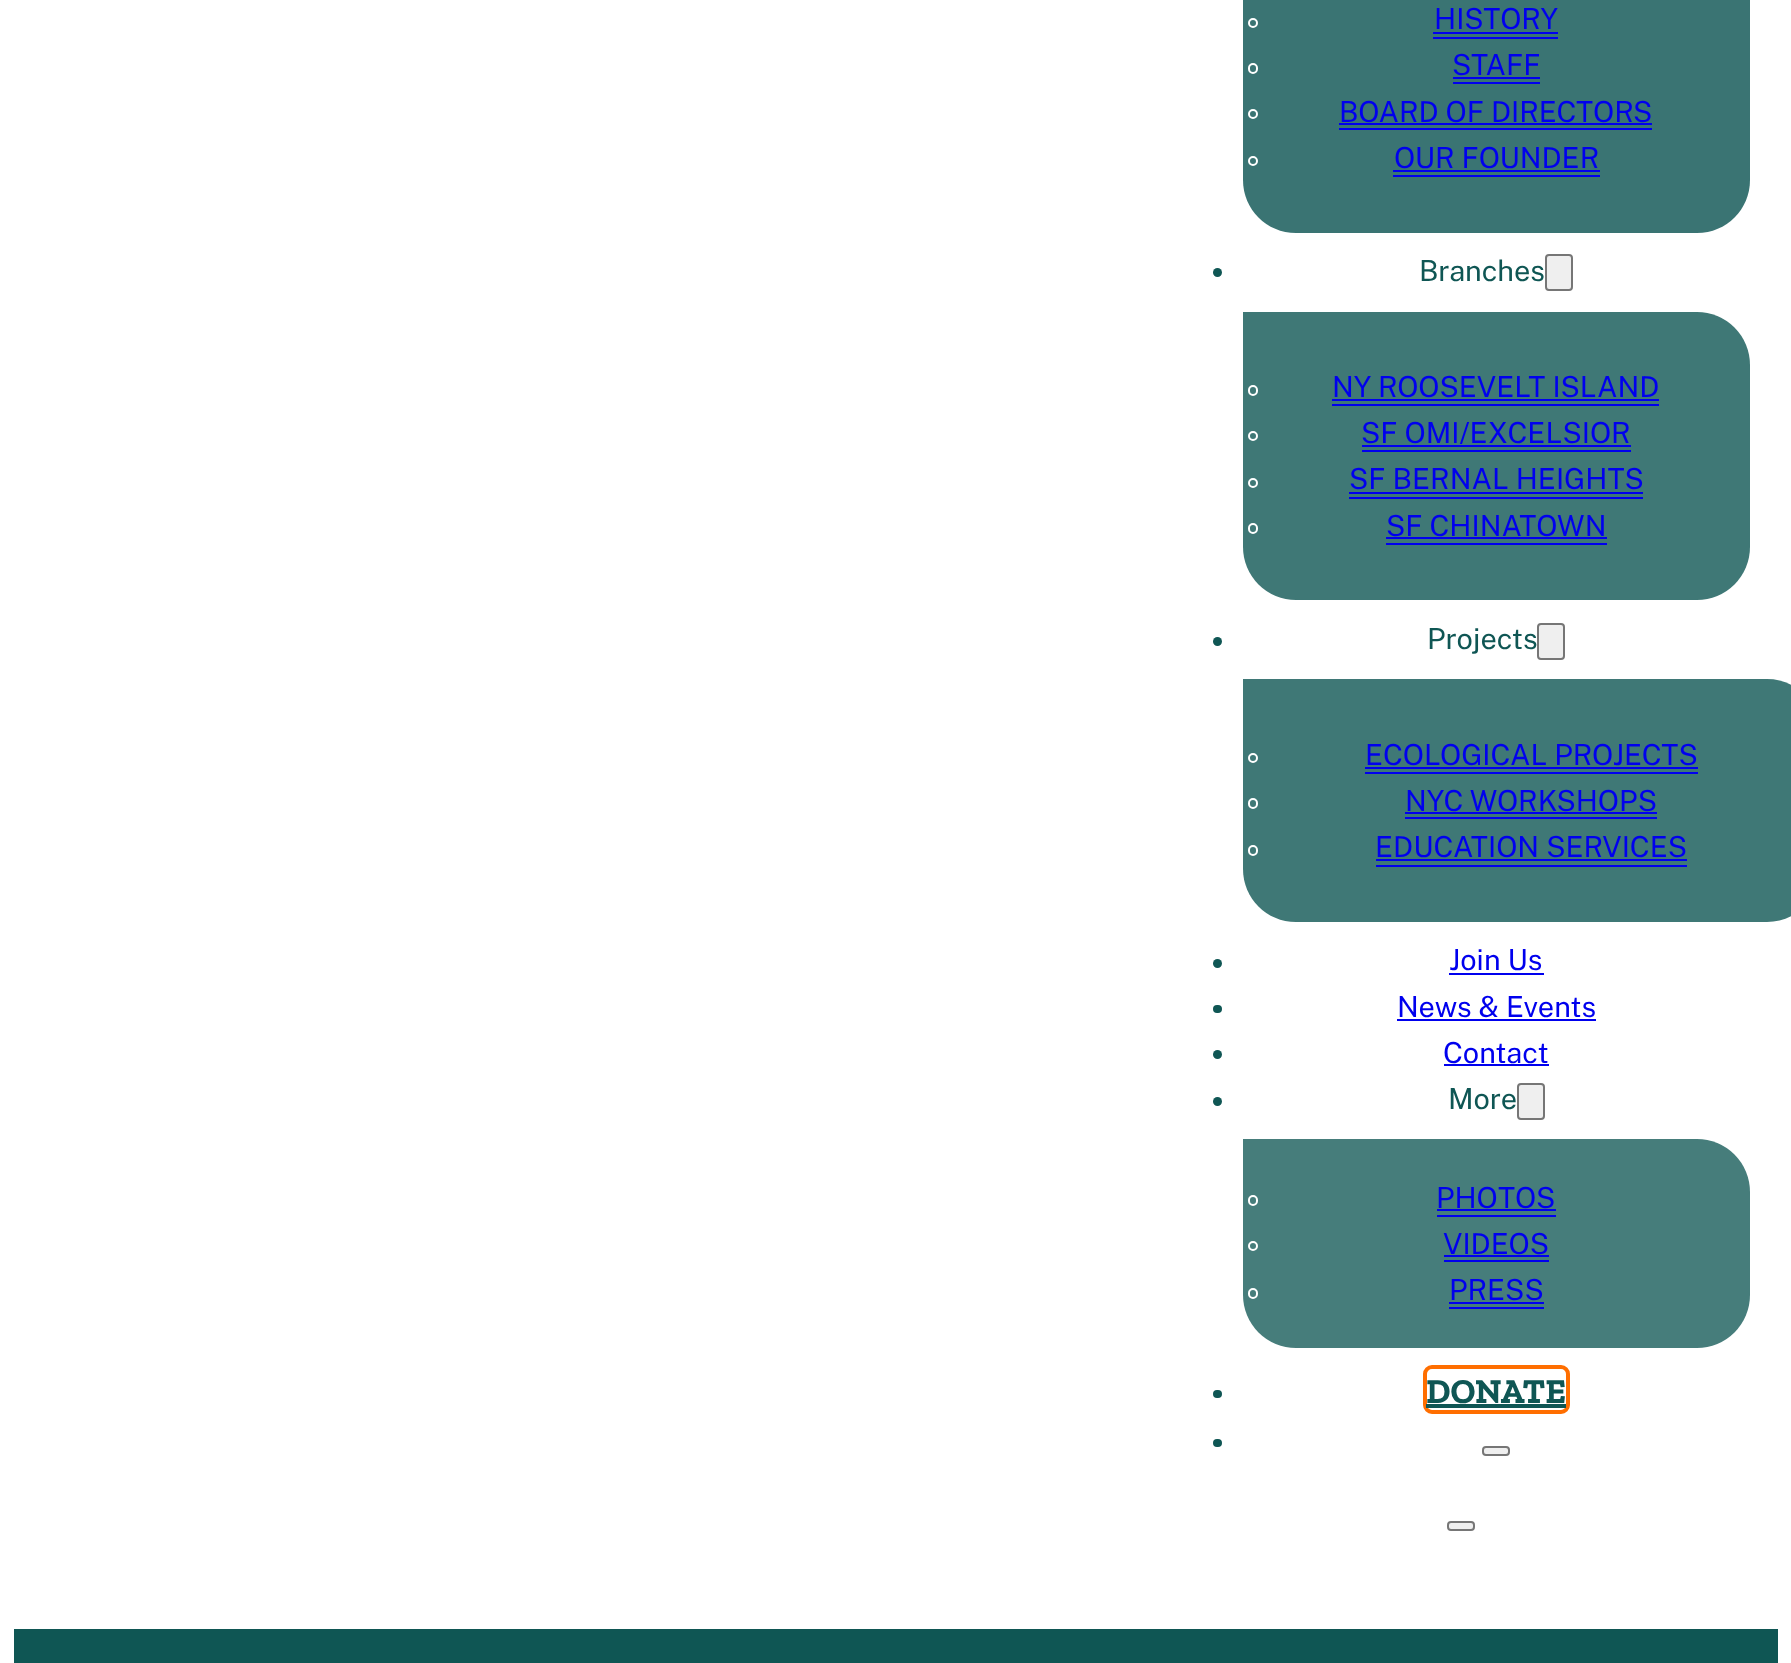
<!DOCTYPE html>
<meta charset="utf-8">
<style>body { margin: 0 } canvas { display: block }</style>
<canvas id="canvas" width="1791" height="1663"></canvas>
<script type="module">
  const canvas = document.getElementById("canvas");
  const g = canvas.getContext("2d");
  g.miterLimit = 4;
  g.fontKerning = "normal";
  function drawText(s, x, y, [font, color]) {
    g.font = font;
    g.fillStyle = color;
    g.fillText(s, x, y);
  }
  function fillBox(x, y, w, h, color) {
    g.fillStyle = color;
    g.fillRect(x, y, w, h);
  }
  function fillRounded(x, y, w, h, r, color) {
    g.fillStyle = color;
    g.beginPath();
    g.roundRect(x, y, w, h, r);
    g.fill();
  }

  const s1 = ["28.9px Public Sans", "#0000EE"];
  const s2 = ["28.9px Public Sans", "#0F5654"];
  const s3 = ["bold 35px Zilla Slab", "#0F5654"];

  fillBox(0, 0, 1791, 1663, "#FFFFFF");
  g.fillStyle = "#3A7473";
  g.beginPath();
  g.moveTo(1243, -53);
  g.lineTo(1697, -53);
  g.bezierCurveTo(1726.5, -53, 1750, -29.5, 1750, 0);
  g.lineTo(1750, 180);
  g.bezierCurveTo(1750, 209.5, 1726.5, 233, 1697, 233);
  g.lineTo(1296, 233);
  g.bezierCurveTo(1266.5, 233, 1243, 209.5, 1243, 180);
  g.closePath();
  g.fill();
  g.beginPath();
  g.arc(1253, 23, 4, 0, Math.PI * 2);
  g.strokeStyle = "#FFFFFF";
  g.lineWidth = 2;
  g.stroke();
  drawText("HISTORY", 1434, 29, s1);
  fillBox(1433, 37, 125, 2, "#0000EE");
  fillBox(1433, 32, 125, 2, "#0000EE");
  g.beginPath();
  g.roundRect(1249, 64, 8, 9, 4);
  g.stroke();
  drawText("STAFF", 1452, 75, s1);
  fillBox(1453, 82, 87, 2, "#0000EE");
  fillBox(1453, 77, 87, 2, "#0000EE");
  g.beginPath();
  g.arc(1253, 114, 4, 0, Math.PI * 2);
  g.stroke();
  drawText("BOARD OF DIRECTORS", 1339, 122, s1);
  fillBox(1339, 128, 313, 2, "#0000EE");
  fillBox(1339, 123, 313, 2, "#0000EE");
  g.beginPath();
  g.arc(1253, 161, 4, 0, Math.PI * 2);
  g.stroke();
  drawText("OUR FOUNDER", 1394, 168, s1);
  fillBox(1393, 175, 207, 2, "#0000EE");
  fillBox(1393, 170, 207, 2, "#0000EE");
  g.fillStyle = "#0F5654";
  g.beginPath();
  g.arc(1217.5, 272.5, 4.5, 0, Math.PI * 2);
  g.fill();
  drawText("Branches", 1419, 281, s2);
  g.fillStyle = "#EFEFEF";
  g.beginPath();
  g.roundRect(1546, 255, 26, 35, 3);
  g.fill();
  g.strokeStyle = "#767676";
  g.stroke();
  g.fillStyle = "#3F7876";
  g.beginPath();
  g.roundRect(1243, 312, 507, 288, [0, 53, 53, 53]);
  g.fill();
  g.beginPath();
  g.roundRect(1249, 386, 8, 9, 4);
  g.strokeStyle = "#FFFFFF";
  g.stroke();
  drawText("NY ROOSEVELT ISLAND", 1332, 397, s1);
  fillBox(1332, 404, 327, 2, "#0000EE");
  fillBox(1332, 399, 327, 2, "#0000EE");
  g.beginPath();
  g.arc(1253, 436, 4, 0, Math.PI * 2);
  g.stroke();
  drawText("SF OMI/EXCELSIOR", 1361, 443, s1);
  fillBox(1362, 450, 269, 2, "#0000EE");
  fillBox(1362, 445, 269, 2, "#0000EE");
  g.beginPath();
  g.arc(1253, 483, 4, 0, Math.PI * 2);
  g.stroke();
  drawText("SF BERNAL HEIGHTS", 1349, 489, s1);
  fillBox(1349, 497, 294, 2, "#0000EE");
  fillBox(1349, 492, 294, 2, "#0000EE");
  g.beginPath();
  g.roundRect(1249, 524, 8, 9, 4);
  g.stroke();
  drawText("SF CHINATOWN", 1386, 536, s1);
  fillBox(1386, 543, 221, 2, "#0000EE");
  fillBox(1386, 537, 221, 2, "#0000EE");
  g.fillStyle = "#0F5654";
  g.beginPath();
  g.arc(1217.5, 641.5, 4.5, 0, Math.PI * 2);
  g.fill();
  drawText("Projects", 1427, 649, s2);
  g.fillStyle = "#EFEFEF";
  g.beginPath();
  g.roundRect(1538, 624, 26, 35, 3);
  g.fill();
  g.strokeStyle = "#767676";
  g.stroke();
  g.fillStyle = "#3F7876";
  g.beginPath();
  g.moveTo(1243, 679);
  g.lineTo(1767, 679);
  g.bezierCurveTo(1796.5, 679, 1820, 702.5, 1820, 732);
  g.lineTo(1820, 869);
  g.bezierCurveTo(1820, 898.5, 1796.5, 922, 1767, 922);
  g.lineTo(1296, 922);
  g.bezierCurveTo(1266.5, 922, 1243, 898.5, 1243, 869);
  g.closePath();
  g.fill();
  g.beginPath();
  g.arc(1253, 758, 4, 0, Math.PI * 2);
  g.strokeStyle = "#FFFFFF";
  g.stroke();
  drawText("ECOLOGICAL PROJECTS", 1365, 765, s1);
  fillBox(1365, 772, 333, 2, "#0000EE");
  fillBox(1365, 767, 333, 2, "#0000EE");
  g.beginPath();
  g.roundRect(1249, 799, 8, 9, 4);
  g.stroke();
  drawText("NYC WORKSHOPS", 1405, 811, s1);
  fillBox(1405, 817, 252, 2, "#0000EE");
  fillBox(1405, 812, 252, 2, "#0000EE");
  g.beginPath();
  g.roundRect(1249, 846, 8, 9, 4);
  g.stroke();
  drawText("EDUCATION SERVICES", 1375, 857, s1);
  fillBox(1376, 865, 311, 2, "#0000EE");
  fillBox(1376, 859, 311, 2, "#0000EE");
  g.fillStyle = "#0F5654";
  g.beginPath();
  g.arc(1217.5, 963.5, 4.5, 0, Math.PI * 2);
  g.fill();
  drawText("Join Us", 1449, 970, s1);
  fillBox(1449, 973, 95, 2, "#0000EE");
  fillRounded(1213, 1005, 9, 8, 4, "#0F5654");
  drawText("News & Events", 1397, 1017, s1);
  fillBox(1397, 1019, 199, 2, "#0000EE");
  g.fillStyle = "#0F5654";
  g.beginPath();
  g.arc(1217.5, 1054.5, 4.5, 0, Math.PI * 2);
  g.fill();
  drawText("Contact", 1443, 1063, s1);
  fillBox(1444, 1064, 105, 2, "#0000EE");
  g.fillStyle = "#0F5654";
  g.beginPath();
  g.arc(1217.5, 1101.5, 4.5, 0, Math.PI * 2);
  g.fill();
  drawText("More", 1448, 1109, s2);
  g.fillStyle = "#EFEFEF";
  g.beginPath();
  g.roundRect(1518, 1084, 26, 35, 3);
  g.fill();
  g.strokeStyle = "#767676";
  g.stroke();
  g.fillStyle = "#467D7B";
  g.beginPath();
  g.roundRect(1243, 1139, 507, 209, [0, 53, 53, 53]);
  g.fill();
  g.beginPath();
  g.roundRect(1249, 1196, 8, 9, 4);
  g.strokeStyle = "#FFFFFF";
  g.stroke();
  drawText("PHOTOS", 1436, 1208, s1);
  fillBox(1437, 1215, 119, 2, "#0000EE");
  fillBox(1437, 1209, 119, 2, "#0000EE");
  g.beginPath();
  g.arc(1253, 1246, 4, 0, Math.PI * 2);
  g.stroke();
  drawText("VIDEOS", 1443, 1254, s1);
  fillBox(1444, 1260, 105, 2, "#0000EE");
  fillBox(1444, 1255, 105, 2, "#0000EE");
  g.beginPath();
  g.roundRect(1249, 1289, 8, 9, 4);
  g.stroke();
  drawText("PRESS", 1449, 1300, s1);
  fillBox(1449, 1307, 95, 2, "#0000EE");
  fillBox(1449, 1302, 95, 2, "#0000EE");
  fillRounded(1213, 1390, 9, 8, 4, "#0F5654");
  g.beginPath();
  g.roundRect(1425, 1367, 143, 45, 7);
  g.strokeStyle = "#FF6E00";
  g.lineWidth = 4;
  g.stroke();
  drawText("DONATE", 1426, 1403, s3);
  fillBox(1426, 1404, 140, 4, "#0F5654");
  fillRounded(1213, 1439, 9, 8, 4, "#0F5654");
  g.fillStyle = "#EFEFEF";
  g.beginPath();
  g.roundRect(1483, 1447, 26, 8, 3);
  g.fill();
  g.strokeStyle = "#767676";
  g.lineWidth = 2;
  g.stroke();
  g.beginPath();
  g.roundRect(1448, 1522, 26, 8, 3);
  g.fill();
  g.stroke();
  fillBox(14, 1629, 1764, 34, "#0F5654");
</script>
